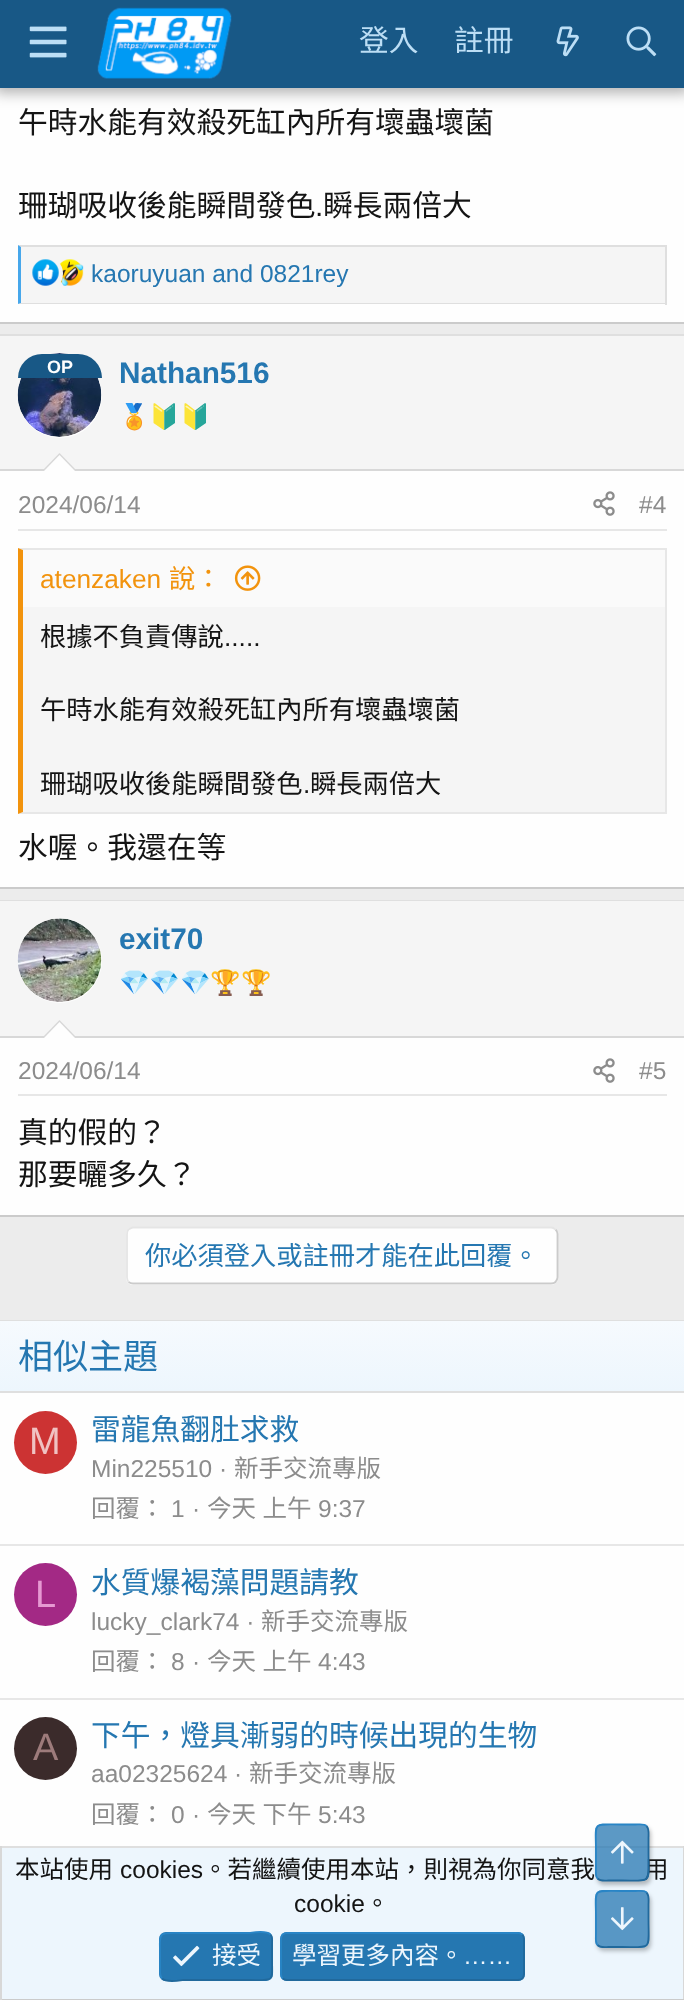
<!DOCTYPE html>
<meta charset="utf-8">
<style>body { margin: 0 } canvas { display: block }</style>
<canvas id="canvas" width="684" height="2000"></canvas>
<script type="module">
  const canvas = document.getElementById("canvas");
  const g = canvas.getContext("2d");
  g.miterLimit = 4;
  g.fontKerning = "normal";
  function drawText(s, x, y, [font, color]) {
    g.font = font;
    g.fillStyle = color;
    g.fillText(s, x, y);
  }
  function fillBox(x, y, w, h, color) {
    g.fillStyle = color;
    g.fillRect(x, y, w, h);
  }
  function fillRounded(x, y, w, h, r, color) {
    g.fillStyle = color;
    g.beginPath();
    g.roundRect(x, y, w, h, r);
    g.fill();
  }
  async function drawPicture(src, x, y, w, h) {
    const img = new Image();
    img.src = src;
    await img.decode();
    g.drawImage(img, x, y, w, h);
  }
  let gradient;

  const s1 = ["29.75px Noto Sans CJK TC", "#BCDEF5"];
  const s2 = ["29.75px Noto Sans CJK TC", "#141414"];
  const s3 = ["29.75px Liberation Sans", "#141414"];
  const s4 = ["24.5px Liberation Sans", "#2577B1"];
  const s5 = ["bold 18px Liberation Sans", "#FEFEFE"];
  const s6 = ["bold 29.75px Liberation Sans", "#2577B1"];
  const s7 = ["24.5px Noto Color Emoji", "#141414"];
  const s8 = ["24.5px Liberation Sans", "#8C8C8C"];
  const s9 = ["26.25px Liberation Sans", "#F2930D"];
  const s10 = ["26.25px Noto Sans CJK TC", "#F2930D"];
  const s11 = ["26.25px Noto Sans CJK TC", "#141414"];
  const s12 = ["26.25px Liberation Sans", "#141414"];
  const s13 = ["26.25px Noto Sans CJK TC", "#2577B1"];
  const s14 = ["35px Noto Sans CJK TC", "#2577B1"];
  const s15 = ["38px Liberation Sans", "#F0C2C2"];
  const s16 = ["29.75px Noto Sans CJK TC", "#2577B1"];
  const s17 = ["24.5px Noto Sans CJK TC", "#8C8C8C"];
  const s18 = ["38px Liberation Sans", "#E699D2"];
  const s19 = ["38px Liberation Sans", "#9D7B7B"];
  const s20 = ["24.5px Noto Sans CJK TC", "#141414"];
  const s21 = ["24.5px Liberation Sans", "#141414"];
  const s22 = ["24.5px Noto Sans CJK TC", "#EDF6FD"];
  const s23 = ["24.5px Liberation Sans", "#EDF6FD"];

  fillBox(0, 0, 684, 2000, "#ECECEC");
  fillBox(0, 88, 684, 234, "#FEFEFE");
  g.fillStyle = "rgba(0, 0, 0, 0.3)";
  g.filter = "blur(7px)";
  g.beginPath();
  g.rect(-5, -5, 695, 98);
  g.fill();
  g.filter = "none";
  fillBox(0, 0, 684, 88, "#185886");
  await drawPicture("pic1.png", 29, 26, 38, 32);
  await drawPicture("pic2.png", 97, 7, 135, 72);
  drawText("登入", 359, 51, s1);
  drawText("註冊", 454, 51, s1);
  await drawPicture("pic3.png", 556, 26, 23, 31);
  await drawPicture("pic4.png", 626, 26, 31, 31);
  fillBox(0, 322, 684, 2, "#CBCBCB");
  drawText("午時水能有效殺死缸內所有壞蟲壞菌", 18, 133, s2);
  drawText("珊瑚吸收後能瞬間發色", 18, 216, s2);
  drawText(".", 315, 216, s3);
  drawText("瞬長兩倍大", 323, 216, s2);
  fillBox(21, 247, 644, 56, "#F5F5F5");
  g.fillStyle = "#DFDFDF";
  g.beginPath();
  g.moveTo(18, 245);
  g.lineTo(667, 245);
  g.lineTo(665, 247);
  g.lineTo(21, 247);
  g.closePath();
  g.fill();
  fillBox(665, 245, 2, 60, "#DFDFDF");
  g.beginPath();
  g.moveTo(667, 304);
  g.lineTo(18, 304);
  g.lineTo(21, 303);
  g.lineTo(665, 303);
  g.closePath();
  g.fill();
  g.fillStyle = "#47A7EB";
  g.beginPath();
  g.moveTo(18, 304);
  g.lineTo(18, 245);
  g.lineTo(21, 247);
  g.lineTo(21, 303);
  g.closePath();
  g.fill();
  await drawPicture("pic6.png", 59, 259, 25, 27);
  g.fillStyle = "#F5F5F5";
  g.beginPath();
  g.arc(45.5, 273.5, 17.5, 0, Math.PI * 2);
  g.fill();
  await drawPicture("pic5.png", 32, 259, 27, 27);
  drawText("kaoruyuan and 0821rey", 91, 282, s4);
  fillBox(0, 471, 684, 416, "#FEFEFE");
  fillBox(0, 334, 684, 2, "#DFDFDF");
  fillBox(0, 887, 684, 2, "#CBCBCB");
  fillBox(0, 336, 684, 133, "#F5F5F5");
  fillBox(0, 469, 684, 2, "#D8D8D8");
  g.fillStyle = "#FEFEFE";
  g.beginPath();
  g.arc(60, 396, 42, 0, Math.PI * 2);
  g.fill();
  await drawPicture("pic7.png", 17, 353, 85, 84);
  g.fillStyle = "#185886";
  g.beginPath();
  g.roundRect(18, 354, 84, 24, [42, 42, 0, 0]);
  g.fill();
  drawText("OP", 47, 373, s5);
  drawText("Nathan516", 119, 383, s6);
  drawText("🏅🔰🔰", 119, 425, s7);
  g.fillStyle = "#D8D8D8";
  g.beginPath();
  g.moveTo(77, 471);
  g.lineTo(42, 471);
  g.lineTo(59.5, 453);
  g.closePath();
  g.fill();
  g.fillStyle = "#FEFEFE";
  g.beginPath();
  g.moveTo(75, 471);
  g.lineTo(44, 471);
  g.lineTo(59.5, 455);
  g.closePath();
  g.fill();
  fillBox(18, 529, 649, 2, "#E7E7E7");
  drawText("2024/06/14", 18, 513, s8);
  await drawPicture("pic8.png", 593, 491, 22, 25);
  drawText("#4", 639, 513, s8);
  fillBox(23, 607, 642, 205, "#F5F5F5");
  g.fillStyle = "#E7E7E7";
  g.beginPath();
  g.moveTo(18, 548);
  g.lineTo(667, 548);
  g.lineTo(665, 550);
  g.lineTo(23, 550);
  g.closePath();
  g.fill();
  fillBox(665, 548, 2, 266, "#E7E7E7");
  g.beginPath();
  g.moveTo(667, 814);
  g.lineTo(18, 814);
  g.lineTo(23, 812);
  g.lineTo(665, 812);
  g.closePath();
  g.fill();
  g.fillStyle = "#F2930D";
  g.beginPath();
  g.moveTo(18, 814);
  g.lineTo(18, 548);
  g.lineTo(23, 550);
  g.lineTo(23, 812);
  g.closePath();
  g.fill();
  fillBox(23, 550, 642, 57, "#FAFAFA");
  drawText("atenzaken", 40, 588, s9);
  drawText("說：", 169, 588, s10);
  await drawPicture("pic9.png", 234, 565, 27, 26);
  drawText("根據不負責傳說", 40, 646, s11);
  drawText(".....", 224, 646, s12);
  drawText("午時水能有效殺死缸內所有壞蟲壞菌", 40, 719, s11);
  drawText("珊瑚吸收後能瞬間發色", 40, 793, s11);
  drawText(".", 303, 793, s12);
  drawText("瞬長兩倍大", 310, 793, s11);
  drawText("水喔。我還在等", 18, 858, s2);
  fillBox(0, 1038, 684, 177, "#FEFEFE");
  fillBox(0, 900, 684, 1, "#DFDFDF");
  fillBox(0, 1215, 684, 2, "#CBCBCB");
  fillBox(0, 901, 684, 135, "#F5F5F5");
  fillBox(0, 1036, 684, 2, "#D8D8D8");
  g.fillStyle = "#FEFEFE";
  g.beginPath();
  g.arc(60, 961, 42, 0, Math.PI * 2);
  g.fill();
  await drawPicture("pic10.png", 17, 918, 85, 84);
  drawText("exit70", 119, 949, s6);
  drawText("💎💎💎🏆🏆", 119, 991, s7);
  g.fillStyle = "#D8D8D8";
  g.beginPath();
  g.moveTo(77, 1038);
  g.lineTo(42, 1038);
  g.lineTo(59.5, 1020);
  g.closePath();
  g.fill();
  g.fillStyle = "#FEFEFE";
  g.beginPath();
  g.moveTo(75, 1038);
  g.lineTo(44, 1038);
  g.lineTo(59.5, 1022);
  g.closePath();
  g.fill();
  fillBox(18, 1094, 649, 2, "#E7E7E7");
  drawText("2024/06/14", 18, 1079, s8);
  await drawPicture("pic8.png", 593, 1058, 22, 25);
  drawText("#5", 639, 1079, s8);
  drawText("真的假的？", 18, 1143, s2);
  drawText("那要曬多久？", 18, 1185, s2);
  fillRounded(126, 1227, 432, 58, 7, "#FEFEFE");
  g.beginPath();
  g.moveTo(555.5, 1229.5);
  g.bezierCurveTo(556.5, 1230.5, 557.5, 1232, 557.5, 1234);
  g.lineTo(557.5, 1277.5);
  g.bezierCurveTo(557.5, 1279, 556.5, 1280.5, 555.5, 1282);
  g.bezierCurveTo(554.5, 1283, 553, 1283.5, 551, 1283.5);
  g.lineTo(133, 1283.5);
  g.bezierCurveTo(131.5, 1283.5, 130, 1283, 128.5, 1282);
  g.strokeStyle = "#CBCBCB";
  g.lineWidth = 1.8;
  g.stroke();
  g.beginPath();
  g.moveTo(128.5, 1282);
  g.bezierCurveTo(127.5, 1280.5, 127, 1279, 127, 1277.5);
  g.lineTo(127, 1234);
  g.bezierCurveTo(127, 1232, 127.5, 1230.5, 128.5, 1229.5);
  g.bezierCurveTo(130, 1228.5, 131.5, 1227.5, 133, 1227.5);
  g.lineTo(551, 1227.5);
  g.bezierCurveTo(553, 1227.5, 554.5, 1228.5, 555.5, 1229.5);
  g.strokeStyle = "#E5E5E5";
  g.stroke();
  drawText("你必須登入或註冊才能在此回覆。", 145, 1265, s13);
  fillBox(0, 1393, 684, 453, "#FEFEFE");
  fillBox(0, 1320, 684, 1, "#DFDFDF");
  gradient = g.createLinearGradient(342, 1391, 342, 1321);
  gradient.addColorStop(0, "#EDF6FD");
  gradient.addColorStop(1, "#F6FAFE");
  g.fillStyle = gradient;
  g.fillRect(0, 1321, 684, 70);
  fillBox(0, 1391, 684, 2, "#DFDFDF");
  drawText("相似主題", 18, 1369, s14);
  g.fillStyle = "#CC3333";
  g.beginPath();
  g.arc(45.5, 1442.5, 31.5, 0, Math.PI * 2);
  g.fill();
  drawText("M", 29, 1454, s15);
  drawText("雷龍魚翻肚求救", 91, 1440, s16);
  drawText("Min225510 ·", 91, 1477, s8);
  drawText("新手交流專版", 234, 1477, s17);
  drawText("回覆：", 91, 1517, s17);
  drawText("1", 171, 1517, s8);
  drawText("·", 192, 1517, s8);
  g.wordSpacing = "1px";
  drawText("今天 上午", 207, 1517, s17);
  g.wordSpacing = "0px";
  drawText("9:37", 318, 1517, s8);
  fillBox(0, 1544, 684, 2, "#E7E7E7");
  g.fillStyle = "#A32985";
  g.beginPath();
  g.arc(45.5, 1594.5, 31.5, 0, Math.PI * 2);
  g.fill();
  drawText("L", 35, 1607, s18);
  drawText("水質爆褐藻問題請教", 91, 1593, s16);
  drawText("lucky_clark74 ·", 91, 1630, s8);
  drawText("新手交流專版", 261, 1630, s17);
  drawText("回覆：", 91, 1670, s17);
  drawText("8", 171, 1670, s8);
  drawText("·", 192, 1670, s8);
  g.wordSpacing = "1px";
  drawText("今天 上午", 207, 1670, s17);
  g.wordSpacing = "0px";
  drawText("4:43", 318, 1670, s8);
  fillBox(0, 1698, 684, 2, "#E7E7E7");
  g.fillStyle = "#3B2B2B";
  g.beginPath();
  g.arc(45.5, 1748.5, 31.5, 0, Math.PI * 2);
  g.fill();
  drawText("A", 33, 1760, s19);
  drawText("下午，燈具漸弱的時候出現的生物", 91, 1746, s16);
  drawText("aa02325624 ·", 91, 1782, s8);
  drawText("新手交流專版", 249, 1782, s17);
  drawText("回覆：", 91, 1823, s17);
  drawText("0", 171, 1823, s8);
  drawText("·", 192, 1823, s8);
  g.wordSpacing = "1px";
  drawText("今天 下午", 207, 1823, s17);
  g.wordSpacing = "0px";
  drawText("5:43", 318, 1823, s8);
  fillBox(2, 1848, 681, 151, "#EDF6FD");
  fillBox(0, 1846, 684, 2, "#DFDFDF");
  g.save();
  g.beginPath();
  g.moveTo(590, 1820);
  g.lineTo(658, 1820);
  g.lineTo(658, 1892);
  g.lineTo(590, 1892);
  g.closePath();
  g.moveTo(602, 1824);
  g.lineTo(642, 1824);
  g.bezierCurveTo(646, 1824, 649, 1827, 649, 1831);
  g.lineTo(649, 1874);
  g.bezierCurveTo(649, 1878, 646, 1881, 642, 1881);
  g.lineTo(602, 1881);
  g.bezierCurveTo(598, 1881, 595, 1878, 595, 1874);
  g.lineTo(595, 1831);
  g.bezierCurveTo(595, 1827, 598, 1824, 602, 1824);
  g.closePath();
  g.clip("evenodd");
  g.fillStyle = "rgba(0, 0, 0, 0.25)";
  g.filter = "blur(2px)";
  g.beginPath();
  g.roundRect(597, 1827, 54, 58, 7);
  g.fill();
  g.filter = "none";
  g.restore();
  drawText("用", 644, 1878, s20);
  fillRounded(595, 1824, 54, 57, 7, "rgba(37, 119, 177, 0.75)");
  g.beginPath();
  g.moveTo(646.5, 1826);
  g.bezierCurveTo(649.5, 1829, 648.5, 1834.5, 648.5, 1838);
  g.lineTo(648.5, 1852.5);
  g.bezierCurveTo(648.5, 1884, 653, 1880.5, 622, 1880.5);
  g.lineTo(608.5, 1880.5);
  g.bezierCurveTo(605.5, 1880.5, 600.5, 1881.5, 597.5, 1878.5);
  g.strokeStyle = "#21699C";
  g.stroke();
  drawText("。若繼續使用本站，則視為你同意我", 203, 1878, s20);
  g.beginPath();
  g.moveTo(597.5, 1878.5);
  g.bezierCurveTo(595, 1875.5, 596, 1870.5, 596, 1867);
  g.lineTo(596, 1852.5);
  g.bezierCurveTo(596, 1820.5, 591, 1824.5, 622, 1824.5);
  g.lineTo(635.5, 1824.5);
  g.bezierCurveTo(639, 1824.5, 644, 1823.5, 646.5, 1826);
  g.strokeStyle = "#2985C6";
  g.stroke();
  await drawPicture("pic11.png", 611, 1840, 23, 24);
  g.save();
  g.beginPath();
  g.moveTo(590, 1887);
  g.lineTo(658, 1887);
  g.lineTo(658, 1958);
  g.lineTo(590, 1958);
  g.closePath();
  g.moveTo(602, 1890);
  g.lineTo(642, 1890);
  g.bezierCurveTo(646, 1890, 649, 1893, 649, 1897);
  g.lineTo(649, 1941);
  g.bezierCurveTo(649, 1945, 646, 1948, 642, 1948);
  g.lineTo(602, 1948);
  g.bezierCurveTo(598, 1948, 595, 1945, 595, 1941);
  g.lineTo(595, 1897);
  g.bezierCurveTo(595, 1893, 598, 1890, 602, 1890);
  g.closePath();
  g.clip("evenodd");
  g.fillStyle = "rgba(0, 0, 0, 0.25)";
  g.filter = "blur(2px)";
  g.beginPath();
  g.roundRect(597, 1894, 54, 57, 7);
  g.fill();
  g.filter = "none";
  g.restore();
  fillRounded(595, 1890, 54, 58, 7, "rgba(37, 119, 177, 0.75)");
  g.beginPath();
  g.moveTo(646.5, 1892.5);
  g.bezierCurveTo(649.5, 1895.5, 648.5, 1901, 648.5, 1904.5);
  g.lineTo(648.5, 1919);
  g.bezierCurveTo(648.5, 1950.5, 653, 1947, 622, 1947);
  g.lineTo(608.5, 1947);
  g.bezierCurveTo(605.5, 1947, 600.5, 1948, 597.5, 1945);
  g.strokeStyle = "#21699C";
  g.stroke();
  g.beginPath();
  g.moveTo(597.5, 1945);
  g.bezierCurveTo(595, 1942, 596, 1937, 596, 1933.5);
  g.lineTo(596, 1919);
  g.bezierCurveTo(596, 1887, 591, 1891, 622, 1891);
  g.lineTo(635.5, 1891);
  g.bezierCurveTo(639, 1891, 644, 1890, 646.5, 1892.5);
  g.strokeStyle = "#2985C6";
  g.stroke();
  await drawPicture("pic12.png", 611, 1907, 23, 24);
  fillBox(683, 1846, 1, 154, "#D8D8D8");
  fillBox(0, 1999, 684, 1, "#CBCBCB");
  fillBox(0, 1846, 2, 154, "#D8D8D8");
  drawText("本站使用", 15, 1878, s20);
  drawText("cookies", 120, 1878, s21);
  drawText("cookie", 294, 1912, s21);
  drawText("。", 365, 1912, s20);
  fillRounded(159, 1932, 114, 49, 7, "#2577B1");
  g.beginPath();
  g.moveTo(270.5, 1934.5);
  g.bezierCurveTo(273, 1937.5, 272, 1941.5, 272, 1945);
  g.lineTo(272, 1956.5);
  g.bezierCurveTo(272, 1982.5, 276, 1980, 249.5, 1980);
  g.lineTo(183, 1980);
  g.bezierCurveTo(182.5, 1980, 166.5, 1983, 162, 1978.5);
  g.strokeStyle = "#21699C";
  g.stroke();
  g.beginPath();
  g.moveTo(162, 1978.5);
  g.bezierCurveTo(159.5, 1975.5, 160, 1971.5, 160, 1968);
  g.lineTo(160, 1956.5);
  g.bezierCurveTo(160, 1930.5, 156.5, 1933, 183, 1933);
  g.lineTo(249.5, 1933);
  g.bezierCurveTo(250, 1933, 266, 1930, 270.5, 1934.5);
  g.strokeStyle = "#2985C6";
  g.stroke();
  await drawPicture("pic13.png", 173, 1945, 27, 22);
  drawText("接受", 212, 1964, s22);
  fillRounded(280, 1932, 245, 49, 7, "#2577B1");
  g.beginPath();
  g.moveTo(522.5, 1934.5);
  g.bezierCurveTo(523.5, 1936, 524, 1937.5, 524, 1939);
  g.lineTo(524, 1974);
  g.bezierCurveTo(524, 1975.5, 523.5, 1977, 522.5, 1978.5);
  g.bezierCurveTo(521, 1979.5, 519.5, 1980, 518, 1980);
  g.lineTo(287, 1980);
  g.bezierCurveTo(285.5, 1980, 284, 1979.5, 282.5, 1978.5);
  g.strokeStyle = "#21699C";
  g.stroke();
  g.beginPath();
  g.moveTo(282.5, 1978.5);
  g.bezierCurveTo(281.5, 1977, 281, 1975.5, 281, 1974);
  g.lineTo(281, 1939);
  g.bezierCurveTo(281, 1937.5, 281.5, 1936, 282.5, 1934.5);
  g.bezierCurveTo(284, 1933.5, 285.5, 1933, 287, 1933);
  g.lineTo(518, 1933);
  g.bezierCurveTo(519.5, 1933, 521, 1933.5, 522.5, 1934.5);
  g.strokeStyle = "#2985C6";
  g.stroke();
  drawText("學習更多內容。", 292, 1964, s22);
  drawText("……", 463, 1964, s23);
</script>
